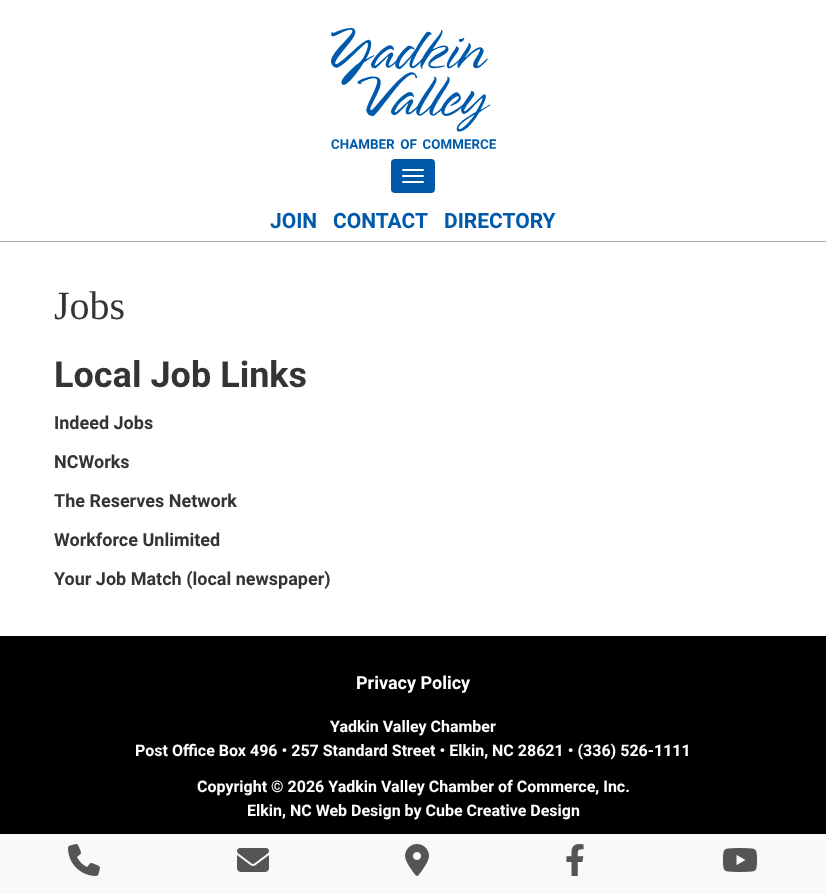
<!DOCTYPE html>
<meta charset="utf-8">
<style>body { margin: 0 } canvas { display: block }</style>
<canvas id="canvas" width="826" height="894"></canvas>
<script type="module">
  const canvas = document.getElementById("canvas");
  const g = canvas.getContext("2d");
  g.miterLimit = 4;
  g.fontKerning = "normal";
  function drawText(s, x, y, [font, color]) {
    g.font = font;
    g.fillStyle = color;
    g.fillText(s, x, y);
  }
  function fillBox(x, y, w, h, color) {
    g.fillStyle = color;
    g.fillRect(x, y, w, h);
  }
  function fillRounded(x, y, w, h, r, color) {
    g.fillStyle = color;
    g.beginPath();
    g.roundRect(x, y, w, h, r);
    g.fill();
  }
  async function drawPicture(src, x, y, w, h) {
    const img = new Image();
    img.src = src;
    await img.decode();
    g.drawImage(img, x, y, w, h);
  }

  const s1 = ["bold 21px Roboto", "#005AAB"];
  const s2 = ["40px Liberation Serif", "#343434"];
  const s3 = ["bold 36px Roboto", "#343434"];
  const s4 = ["bold 18px Roboto", "#343434"];
  const s5 = ["bold 18px Roboto", "#FFFFFF"];
  const s6 = ["bold 16px Roboto", "#FFFFFF"];

  fillBox(0, 0, 826, 894, "#FFFFFF");
  fillBox(0, 241, 826, 1, "#ADADAD");
  await drawPicture("pic1.png", 331, 28, 165, 121);
  fillRounded(391, 159, 44, 34, 4, "#005AAB");
  fillRounded(402, 169, 22, 2, 1, "#FFFFFF");
  fillRounded(402, 175, 22, 2, 1, "#FFFFFF");
  fillRounded(402, 181, 22, 2, 1, "#FFFFFF");
  drawText("JOIN", 270, 228, s1);
  drawText("CONTACT", 333, 228, s1);
  drawText("DIRECTORY", 444, 228, s1);
  drawText("Jobs", 54, 319, s2);
  drawText("Local Job Links", 54, 387, s3);
  drawText("Indeed Jobs", 54, 429, s4);
  drawText("NCWorks", 54, 468, s4);
  drawText("The Reserves Network", 54, 507, s4);
  drawText("Workforce Unlimited", 54, 546, s4);
  drawText("Your Job Match (local newspaper)", 54, 585, s4);
  fillBox(0, 636, 826, 198, "#000000");
  drawText("Privacy Policy", 356, 689, s5);
  drawText("Yadkin Valley Chamber", 330, 732, s6);
  drawText("Post Office Box 496 • 257 Standard Street • Elkin, NC 28621 • (336) 526-1111", 135, 756, s6);
  drawText("Copyright © 2026 Yadkin Valley Chamber of Commerce, Inc.", 197, 792, s6);
  drawText("Elkin, NC Web Design by Cube Creative Design", 247, 816, s6);
  fillBox(0, 834, 826, 60, "#F9F9F9");
  await drawPicture("pic2.png", 68, 844, 32, 32);
  await drawPicture("pic3.png", 237, 848, 32, 24);
  await drawPicture("pic4.png", 405, 844, 24, 32);
  await drawPicture("pic5.png", 566, 844, 18, 32);
  await drawPicture("pic6.png", 722, 848, 36, 24);
</script>
